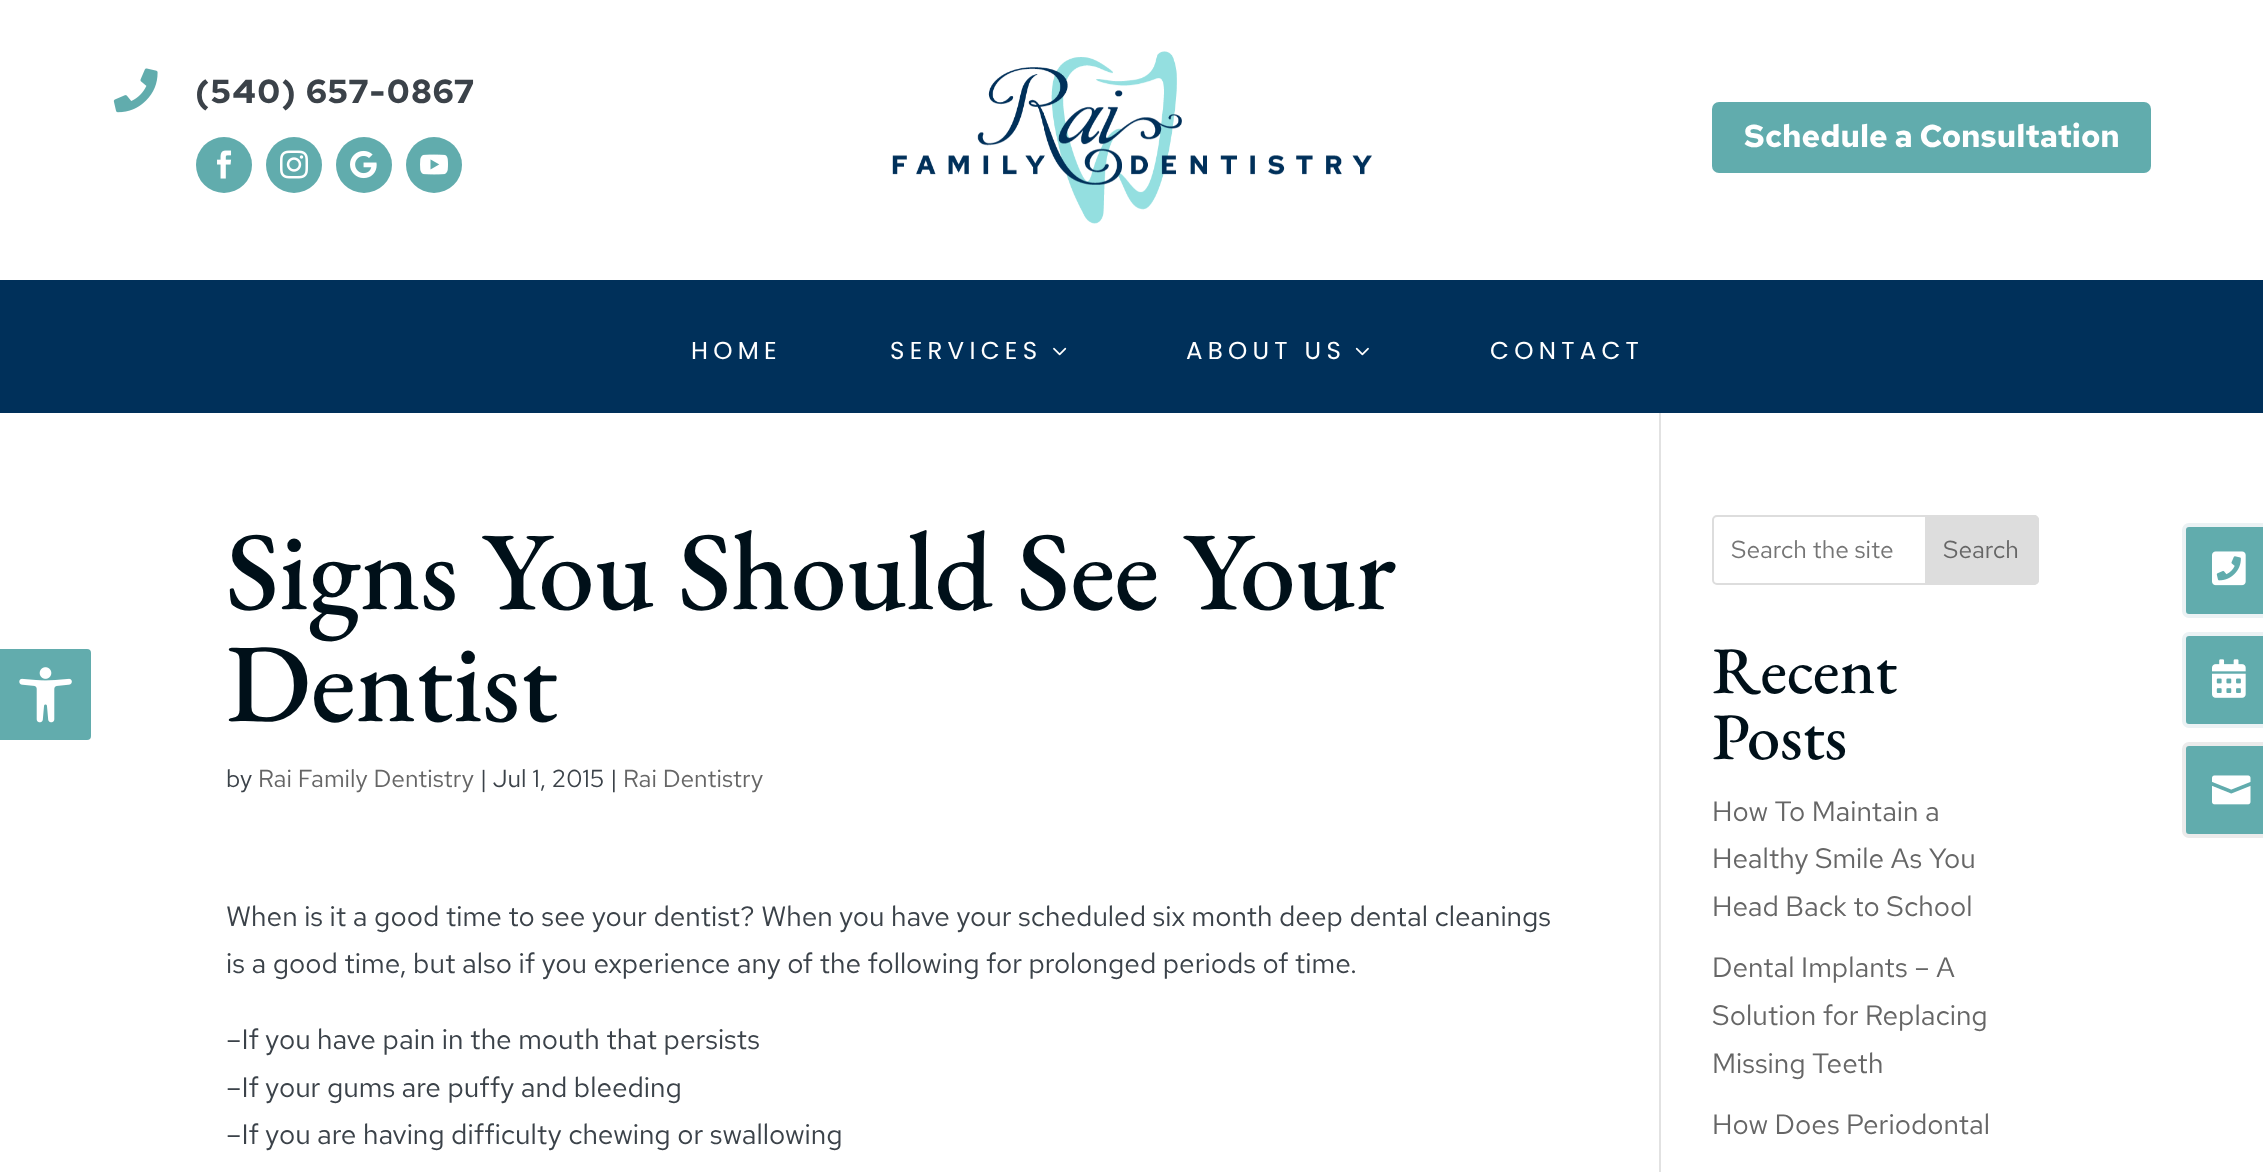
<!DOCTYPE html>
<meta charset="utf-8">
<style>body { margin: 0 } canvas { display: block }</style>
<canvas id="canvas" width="2263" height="1172"></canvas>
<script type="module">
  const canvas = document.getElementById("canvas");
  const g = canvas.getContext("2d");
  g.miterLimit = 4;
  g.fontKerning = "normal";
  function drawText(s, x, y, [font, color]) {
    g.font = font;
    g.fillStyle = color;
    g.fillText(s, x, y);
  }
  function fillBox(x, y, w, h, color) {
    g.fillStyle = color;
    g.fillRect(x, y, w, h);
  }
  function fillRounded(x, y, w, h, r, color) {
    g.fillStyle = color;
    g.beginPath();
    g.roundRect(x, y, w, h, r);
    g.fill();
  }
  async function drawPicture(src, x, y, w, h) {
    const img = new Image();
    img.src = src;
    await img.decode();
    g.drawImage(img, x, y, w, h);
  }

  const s1 = ["bold 33.25px Red Hat Text", "#3B4249"];
  const s2 = ["bold 31.5px Red Hat Text", "#FFFFFF"];
  const s3 = ["24.5px Poppins", "#FFFFFF"];
  const s4 = ["500 112px EB Garamond", "#001019"];
  const s5 = ["24.5px Red Hat Text", "#3B4249"];
  const s6 = ["24.5px Red Hat Text", "#666666"];
  const s7 = ["28px Red Hat Text", "#3B4249"];
  const s8 = ["24.5px Red Hat Text", "#757575"];
  const s9 = ["500 66.5px EB Garamond", "#001019"];
  const s10 = ["28px Red Hat Text", "#666666"];

  fillBox(0, 0, 2263, 1172, "#FFFFFF");
  g.fillStyle = "#62ACAD";
  g.beginPath();
  g.roundRect(0, 649, 91, 91, [0, 4, 4, 0]);
  g.fill();
  await drawPicture("pic1.png", 19, 667, 53, 56);
  await drawPicture("pic2.png", 113, 68, 45, 45);
  g.letterSpacing = "1.75px";
  drawText("(540) 657-0867", 195, 103, s1);
  g.fillStyle = "#61ACAD";
  g.beginPath();
  g.arc(224, 165, 28, 0, Math.PI * 2);
  g.fill();
  await drawPicture("pic3.png", 217, 150, 15, 29);
  g.beginPath();
  g.arc(294, 165, 28, 0, Math.PI * 2);
  g.fill();
  await drawPicture("pic4.png", 280, 150, 28, 29);
  g.beginPath();
  g.arc(364, 165, 28, 0, Math.PI * 2);
  g.fill();
  await drawPicture("pic5.png", 350, 150, 27, 29);
  g.beginPath();
  g.arc(434, 165, 28, 0, Math.PI * 2);
  g.fill();
  await drawPicture("pic6.png", 420, 154, 28, 21);
  await drawPicture("pic7.png", 892, 51, 480, 173);
  fillRounded(1712, 102, 439, 71, 7, "#61ACAD");
  g.letterSpacing = "0px";
  drawText("Schedule a Consultation", 1744, 147, s2);
  fillBox(0, 280, 2263, 133, "#00305A");
  g.letterSpacing = "5.25px";
  drawText("HOME", 691, 359, s3);
  drawText("SERVICES", 890, 359, s3);
  await drawPicture("pic8.png", 1053, 347, 14, 9);
  drawText("ABOUT US", 1186, 359, s3);
  await drawPicture("pic9.png", 1355, 347, 14, 9);
  drawText("CONTACT", 1490, 359, s3);
  fillBox(1659, 413, 2, 759, "#E2E2E2");
  g.letterSpacing = "0px";
  drawText("Signs You Should See Your", 226, 609, s4);
  drawText("Dentist", 226, 721, s4);
  drawText("by", 226, 787, s5);
  drawText("Rai Family Dentistry", 258, 787, s6);
  drawText("| Jul 1, 2015 |", 480, 787, s5);
  drawText("Rai Dentistry", 623, 787, s6);
  drawText("When is it a good time to see your dentist? When you have your scheduled six month deep dental cleanings", 226, 926, s7);
  drawText("is a good time, but also if you experience any of the following for prolonged periods of time.", 226, 973, s7);
  drawText("–If you have pain in the mouth that persists", 226, 1049, s7);
  drawText("–If your gums are puffy and bleeding", 226, 1097, s7);
  drawText("–If you are having difficulty chewing or swallowing", 226, 1144, s7);
  g.beginPath();
  g.roundRect(1713, 516, 325, 68, 4);
  g.strokeStyle = "#DDDDDD";
  g.lineWidth = 2;
  g.stroke();
  drawText("Search the site", 1731, 558, s8);
  g.fillStyle = "#DDDDDD";
  g.beginPath();
  g.roundRect(1926, 516, 112, 68, [0, 4, 4, 0]);
  g.fill();
  g.stroke();
  drawText("Search", 1943, 558, s6);
  drawText("Recent", 1712, 693, s9);
  drawText("Posts", 1712, 759, s9);
  drawText("How To Maintain a", 1712, 821, s10);
  drawText("Healthy Smile As You", 1712, 868, s10);
  drawText("Head Back to School", 1712, 916, s10);
  drawText("Dental Implants – A", 1712, 977, s10);
  drawText("Solution for Replacing", 1712, 1025, s10);
  drawText("Missing Teeth", 1712, 1073, s10);
  drawText("How Does Periodontal", 1712, 1134, s10);
  g.fillStyle = "#61ACAD";
  g.beginPath();
  g.roundRect(2184, 525, 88, 91, 5);
  g.fill();
  g.strokeStyle = "#EBF2F4";
  g.lineWidth = 4;
  g.stroke();
  await drawPicture("pic10.png", 2212, 551, 34, 35);
  g.beginPath();
  g.roundRect(2184, 634, 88, 92, 5);
  g.fill();
  g.stroke();
  await drawPicture("pic11.png", 2212, 659, 34, 39);
  g.beginPath();
  g.roundRect(2184, 744, 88, 92, 5);
  g.fill();
  g.strokeStyle = "#EBEBEB";
  g.stroke();
  await drawPicture("pic12.png", 2212, 775, 39, 30);
</script>
